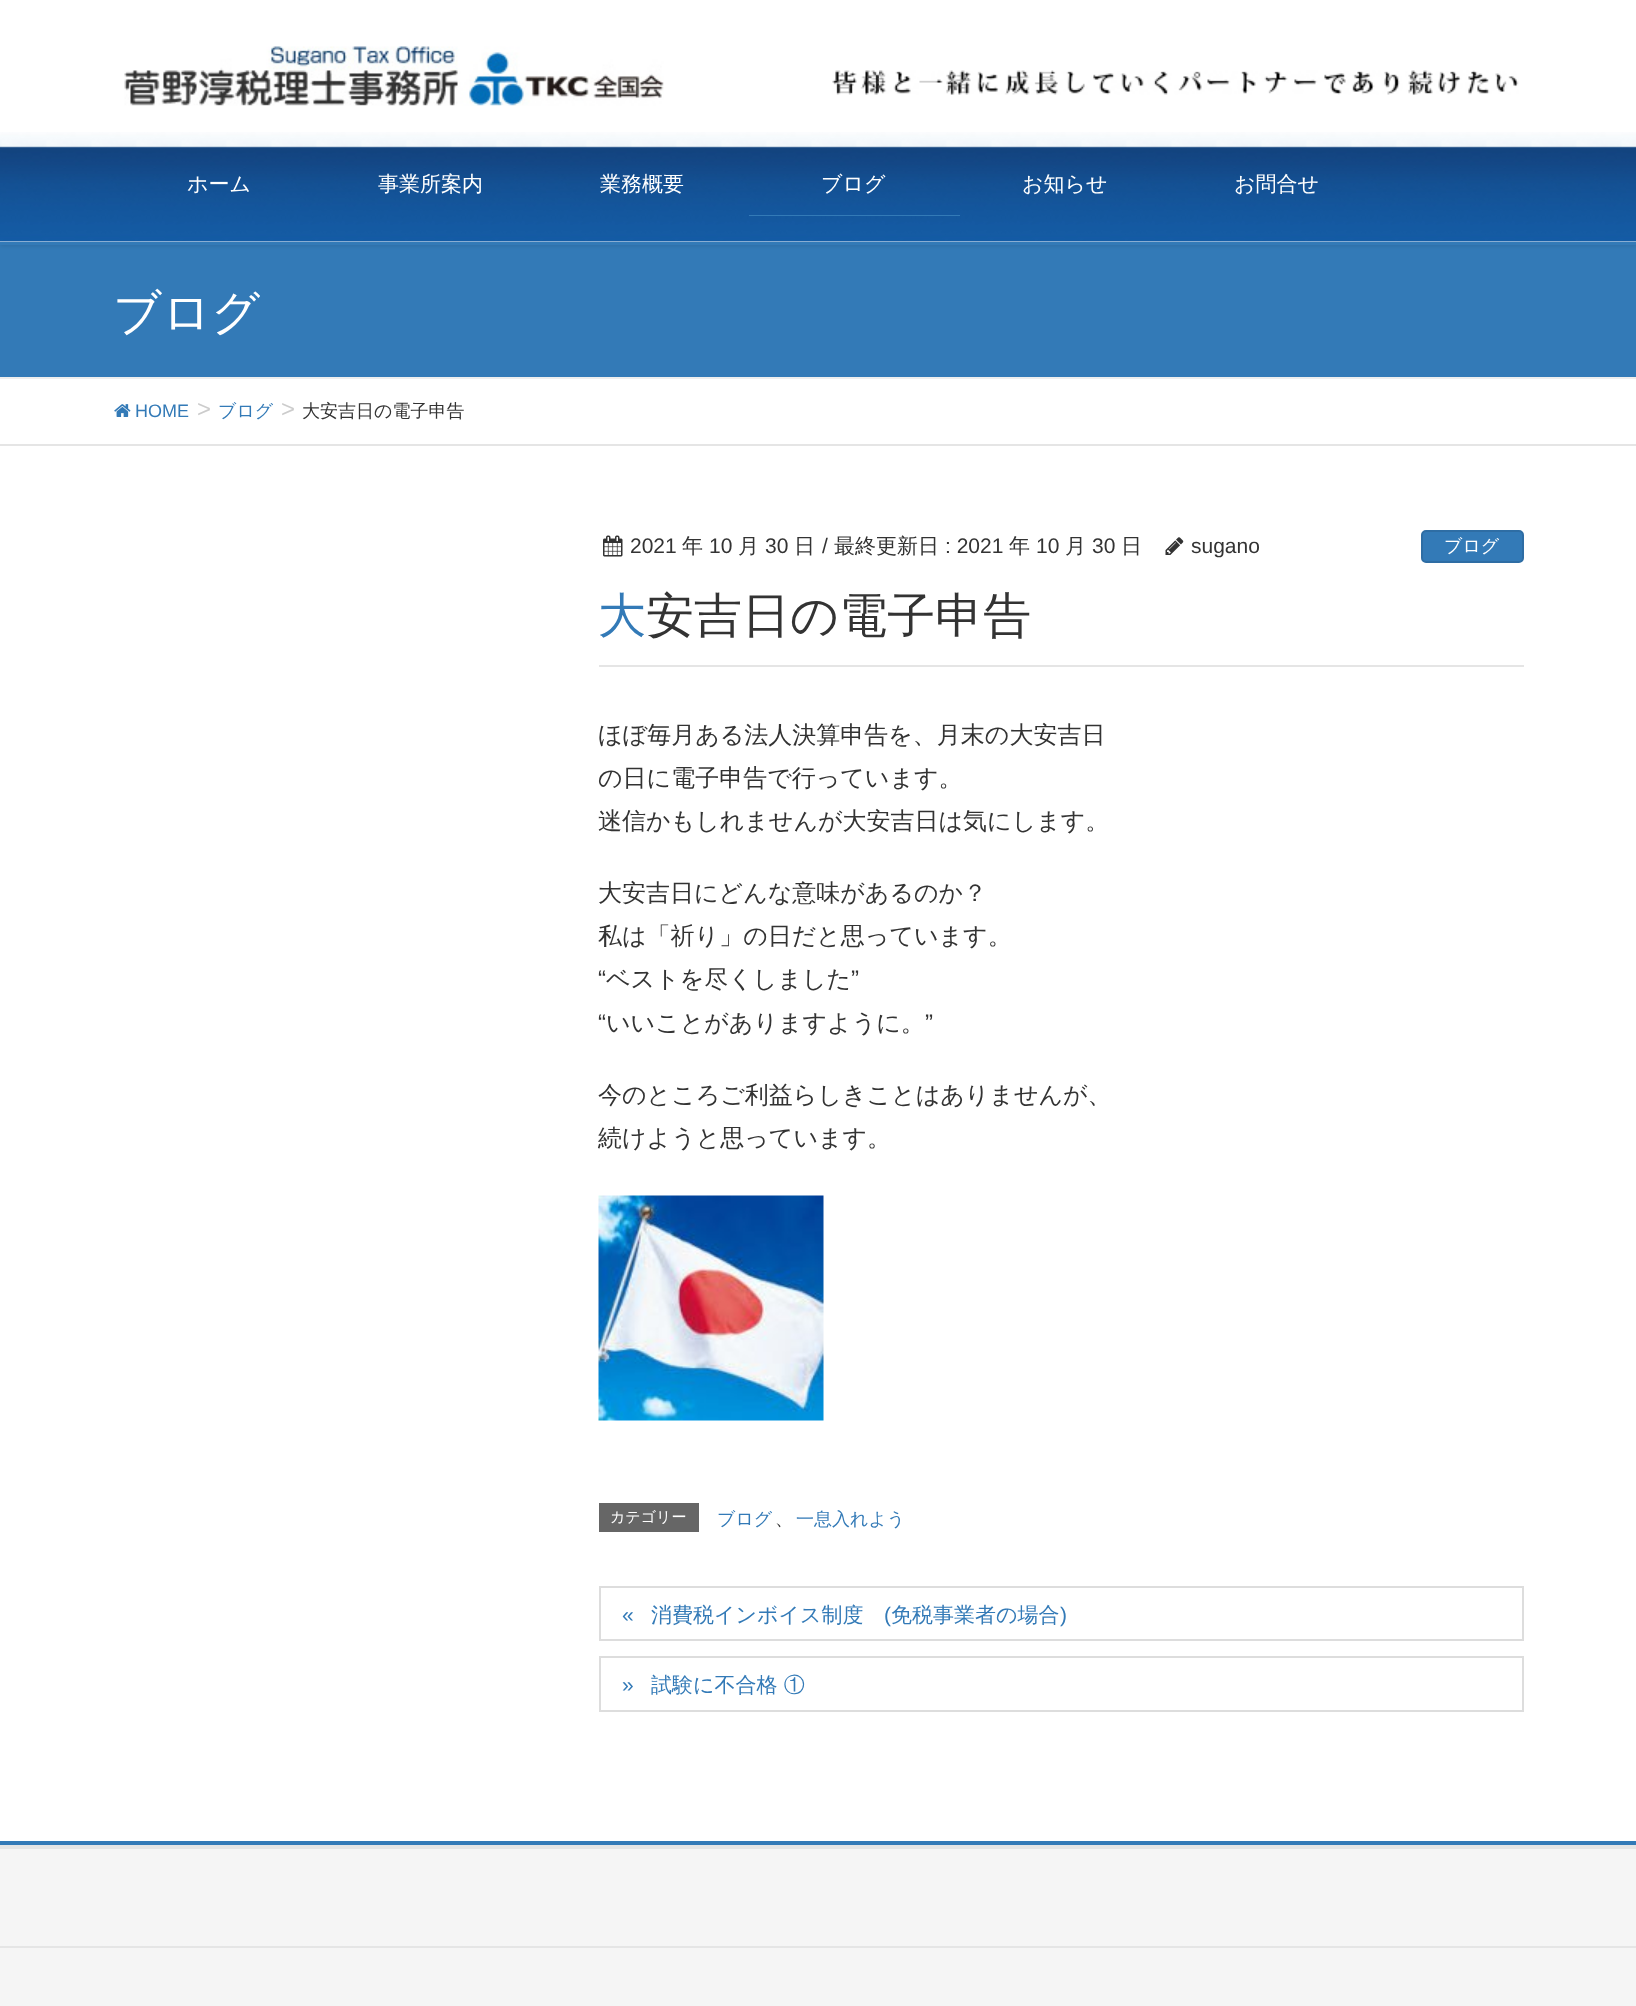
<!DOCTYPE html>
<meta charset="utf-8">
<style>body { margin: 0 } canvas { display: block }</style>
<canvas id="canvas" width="1636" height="2006"></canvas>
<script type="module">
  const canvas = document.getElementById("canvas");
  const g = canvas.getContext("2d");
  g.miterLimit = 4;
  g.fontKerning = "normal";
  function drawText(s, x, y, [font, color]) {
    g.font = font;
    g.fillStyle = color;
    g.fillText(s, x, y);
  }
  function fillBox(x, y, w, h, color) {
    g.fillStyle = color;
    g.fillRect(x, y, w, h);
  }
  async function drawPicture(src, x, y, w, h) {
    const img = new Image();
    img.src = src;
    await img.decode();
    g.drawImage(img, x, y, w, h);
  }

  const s1 = ["500 21px WenQuanYi Zen Hei", "#FFFFFF"];
  const s2 = ["500 48px WenQuanYi Zen Hei", "#FFFFFF"];
  const s3 = ["18px Liberation Sans", "#337AB7"];
  const s4 = ["24px Liberation Sans", "#CCCCCC"];
  const s5 = ["500 18px WenQuanYi Zen Hei", "#337AB7"];
  const s6 = ["500 18px WenQuanYi Zen Hei", "#333333"];
  const s7 = ["21px Liberation Sans", "#333333"];
  const s8 = ["500 21px WenQuanYi Zen Hei", "#333333"];
  const s9 = ["500 18px WenQuanYi Zen Hei", "#FFFFFF"];
  const s10 = ["500 48px Noto Sans", "#337AB7"];
  const s11 = ["500 48px WenQuanYi Zen Hei", "#333333"];
  const s12 = ["500 24px WenQuanYi Zen Hei", "#333333"];
  const s13 = ["24px Liberation Sans", "#333333"];
  const s14 = ["500 15px WenQuanYi Zen Hei", "#FFFFFF"];
  const s15 = ["21px Liberation Sans", "#337AB7"];
  const s16 = ["500 21px WenQuanYi Zen Hei", "#337AB7"];

  fillBox(0, 0, 1636, 2006, "#FFFFFF");
  fillBox(0, 242, 1636, 135, "#337AB7");
  g.save();
  g.beginPath();
  g.moveTo(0, 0);
  g.lineTo(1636, 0);
  g.lineTo(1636, 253);
  g.lineTo(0, 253);
  g.closePath();
  g.moveTo(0, 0);
  g.lineTo(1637, 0);
  g.lineTo(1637, 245);
  g.lineTo(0, 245);
  g.closePath();
  g.clip("evenodd");
  g.fillStyle = "rgba(0, 0, 0, 0.1)";
  g.filter = "blur(2px)";
  g.beginPath();
  g.rect(0, 2, 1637, 244);
  g.fill();
  g.filter = "none";
  g.restore();
  await drawPicture("pic1.png", 0, 132, 1636, 110);
  await drawPicture("pic2.png", 124, 46, 540, 60);
  await drawPicture("pic3.png", 832, 70, 687, 25);
  drawText("ホーム", 187, 191, s1);
  drawText("事業所案内", 378, 191, s1);
  drawText("業務概要", 600, 191, s1);
  drawText("ブログ", 821, 191, s1);
  fillBox(749, 215, 211, 1, "#337AB7");
  drawText("お知らせ", 1022, 191, s1);
  drawText("お問合せ", 1234, 191, s1);
  fillBox(0, 377, 1636, 2, "#EEEEEE");
  drawText("ブログ", 113, 329, s2);
  fillBox(0, 444, 1636, 2, "#E5E5E5");
  await drawPicture("pic4.png", 114, 404, 17, 13);
  drawText("HOME", 135, 417, s3);
  drawText(">", 197, 417, s4);
  drawText("ブログ", 218, 417, s5);
  drawText(">", 281, 417, s4);
  drawText("大安吉日の電子申告", 302, 417, s6);
  fillBox(599, 665, 925, 2, "#E5E5E5");
  await drawPicture("pic5.png", 603, 535, 20, 22);
  drawText("2021", 630, 553, s7);
  drawText("年", 682, 553, s8);
  drawText("10", 709, 553, s7);
  drawText("月", 738, 553, s8);
  drawText("30", 765, 553, s7);
  drawText("日", 794, 553, s8);
  drawText("/", 822, 553, s7);
  drawText("最終更新日", 834, 553, s8);
  drawText(": 2021", 945, 553, s7);
  drawText("年", 1009, 553, s8);
  drawText("10", 1036, 553, s7);
  drawText("月", 1065, 553, s8);
  drawText("30", 1092, 553, s7);
  drawText("日", 1121, 553, s8);
  await drawPicture("pic6.png", 1165, 537, 19, 18);
  drawText("sugano", 1191, 553, s7);
  g.fillStyle = "#337AB7";
  g.beginPath();
  g.roundRect(1422, 531, 101, 31, 4);
  g.fill();
  g.strokeStyle = "#2E6DA4";
  g.lineWidth = 2;
  g.stroke();
  drawText("ブログ", 1444, 552, s9);
  drawText("大", 598, 632, s10);
  drawText("安吉日の電子申告", 646, 632, s11);
  drawText("ほぼ毎月ある法人決算申告を、月末の大安吉日", 598, 743, s12);
  drawText("の日に電子申告で行っています。", 598, 786, s12);
  drawText("迷信かもしれませんが大安吉日は気にします。", 598, 829, s12);
  drawText("大安吉日にどんな意味があるのか？", 598, 901, s12);
  drawText("私は「祈り」の日だと思っています。", 598, 944, s12);
  drawText("“", 598, 987, s13);
  drawText("ベストを尽くしました", 606, 987, s12);
  drawText("”", 851, 987, s13);
  drawText("“", 598, 1031, s13);
  drawText("いいことがありますように。", 606, 1031, s12);
  drawText("”", 925, 1031, s13);
  drawText("今のところご利益らしきことはありませんが、", 598, 1103, s12);
  drawText("続けようと思っています。", 598, 1146, s12);
  await drawPicture("pic7.png", 598, 1195, 226, 226);
  fillBox(599, 1503, 100, 29, "#666666");
  drawText("カテゴリー", 610, 1522, s14);
  drawText("ブログ", 717, 1525, s5);
  drawText("、", 775, 1525, s6);
  drawText("一息入れよう", 796, 1525, s5);
  g.strokeStyle = "#DDDDDD";
  g.strokeRect(600, 1587, 923, 53);
  drawText("«", 622, 1622, s15);
  drawText("消費税インボイス制度", 651, 1622, s16);
  drawText("(", 884, 1622, s15);
  drawText("免税事業者の場合", 891, 1622, s16);
  drawText(")", 1060, 1622, s15);
  g.strokeRect(600, 1657, 923, 54);
  drawText("»", 622, 1692, s15);
  drawText("試験に不合格 ①", 651, 1692, s16);
  fillBox(0, 1849, 1636, 157, "#F5F5F5");
  fillBox(0, 1841, 1636, 4, "#337AB7");
  fillBox(0, 1845, 1636, 4, "#E5E5E5");
  fillBox(0, 1946, 1636, 2, "#E5E5E5");
</script>
